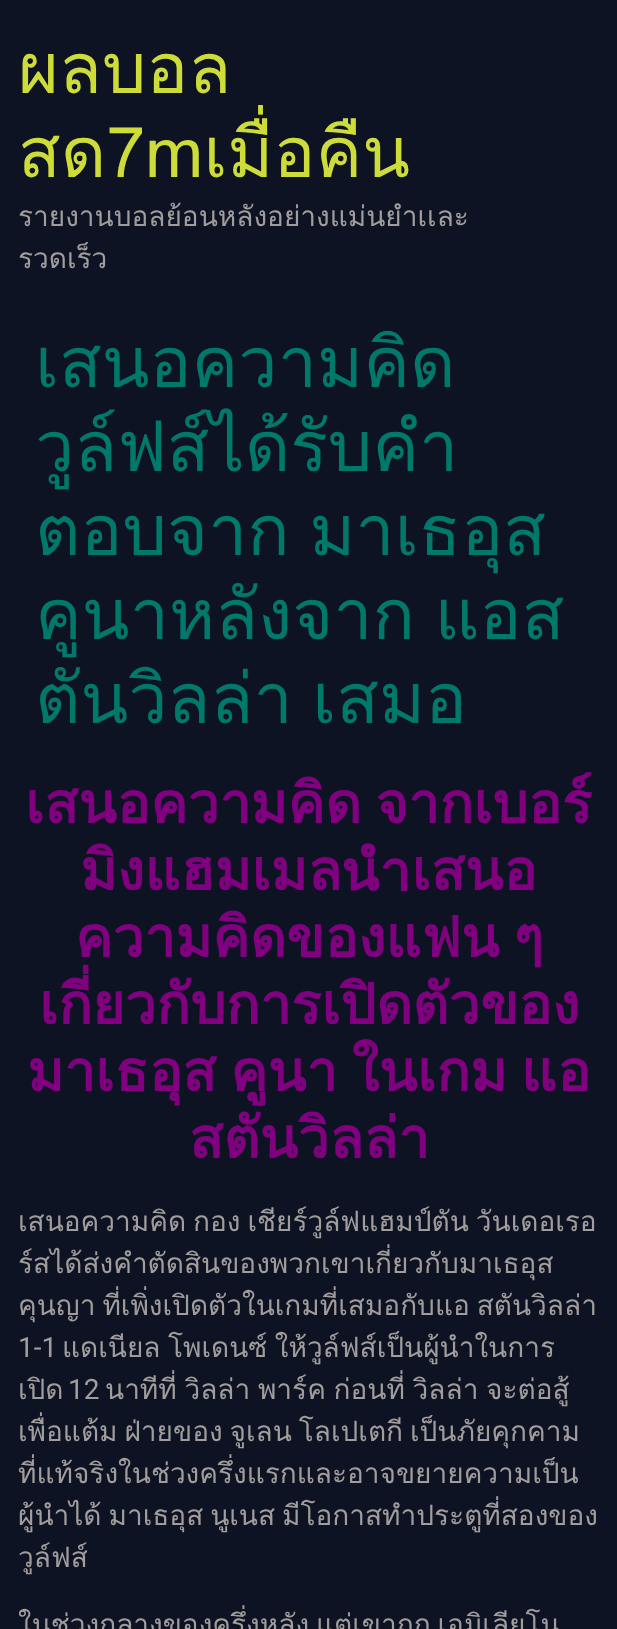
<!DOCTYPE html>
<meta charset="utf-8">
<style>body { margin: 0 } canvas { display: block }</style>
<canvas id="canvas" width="617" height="1629"></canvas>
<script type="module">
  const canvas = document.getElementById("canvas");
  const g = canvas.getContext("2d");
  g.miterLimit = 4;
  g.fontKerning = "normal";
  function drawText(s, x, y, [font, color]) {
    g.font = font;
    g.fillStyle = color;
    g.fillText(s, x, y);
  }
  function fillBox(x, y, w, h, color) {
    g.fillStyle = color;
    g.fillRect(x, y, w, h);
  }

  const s1 = ["70px Loma", "#CDDC39"];
  const s2 = ["28px Loma", "#A29D9D"];
  const s3 = ["70px Loma", "#00796B"];
  const s4 = ["bold 56px Loma", "#800080"];
  const s5 = ["28px Roboto", "#A29D9D"];

  fillBox(0, 0, 617, 1629, "#0D1323");
  drawText("ผลบอล", 18, 93, s1);
  drawText("สด7mเมื่อคืน", 18, 177, s1);
  drawText("รายงานบอลย้อนหลังอย่างแม่นยำเเละ", 18, 226, s2);
  drawText("รวดเร็ว", 18, 268, s2);
  drawText("เสนอความคิด", 35, 387, s3);
  drawText("วูล์ฟส์ได้รับคำ", 35, 471, s3);
  g.wordSpacing = "-4px";
  drawText("ตอบจาก มาเธอุส", 35, 555, s3);
  drawText("คูนาหลังจาก แอส", 35, 639, s3);
  drawText("ตันวิลล่า เสมอ", 35, 723, s3);
  g.wordSpacing = "-5px";
  drawText("เสนอความคิด จากเบอร์", 25, 823, s4);
  g.wordSpacing = "0px";
  drawText("มิงแฮมเมลนำเสนอ", 80, 890, s4);
  g.wordSpacing = "-5px";
  drawText("ความคิดของแฟน ๆ", 75, 957, s4);
  g.wordSpacing = "0px";
  drawText("เกี่ยวกับการเปิดตัวของ", 39, 1024, s4);
  g.wordSpacing = "-5px";
  drawText("มาเธอุส คูนา ในเกม แอ", 27, 1091, s4);
  g.wordSpacing = "0px";
  drawText("สตันวิลล่า", 189, 1158, s4);
  g.wordSpacing = "-2.5px";
  drawText("เสนอความคิด กอง เชียร์วูล์ฟแฮมป์ตัน วันเดอเรอ", 18, 1231, s2);
  g.wordSpacing = "0px";
  drawText("ร์สได้ส่งคำตัดสินของพวกเขาเกี่ยวกับมาเธอุส", 18, 1273, s2);
  g.wordSpacing = "-2.5px";
  drawText("คุนญา ที่เพิ่งเปิดตัวในเกมที่เสมอกับแอ สตันวิลล่า", 18, 1315, s2);
  g.wordSpacing = "0px";
  drawText("1-1", 18, 1357, s5);
  g.wordSpacing = "-2px";
  drawText("แดเนียล โพเดนซ์ ให้วูล์ฟส์เป็นผู้นำในการ", 62, 1357, s2);
  g.wordSpacing = "0px";
  drawText("เปิด", 18, 1399, s2);
  drawText("12", 68, 1399, s5);
  g.wordSpacing = "-1.75px";
  drawText("นาทีที่ วิลล่า พาร์ค ก่อนที่ วิลล่า จะต่อสู้", 105, 1399, s2);
  g.wordSpacing = "-2.5px";
  drawText("เพื่อแต้ม ฝ่ายของ จูเลน โลเปเตกี เป็นภัยคุกคาม", 18, 1441, s2);
  g.wordSpacing = "0px";
  drawText("ที่แท้จริงในช่วงครึ่งแรกและอาจขยายความเป็น", 18, 1483, s2);
  g.wordSpacing = "-2.5px";
  drawText("ผู้นำได้ มาเธอุส นูเนส มีโอกาสทำประตูที่สองของ", 18, 1525, s2);
  g.wordSpacing = "0px";
  drawText("วูล์ฟส์", 18, 1567, s2);
  g.wordSpacing = "-2.5px";
  drawText("ในช่วงกลางของครึ่งหลัง แต่เขาถูก เอมิเลียโน", 18, 1634, s2);
</script>
